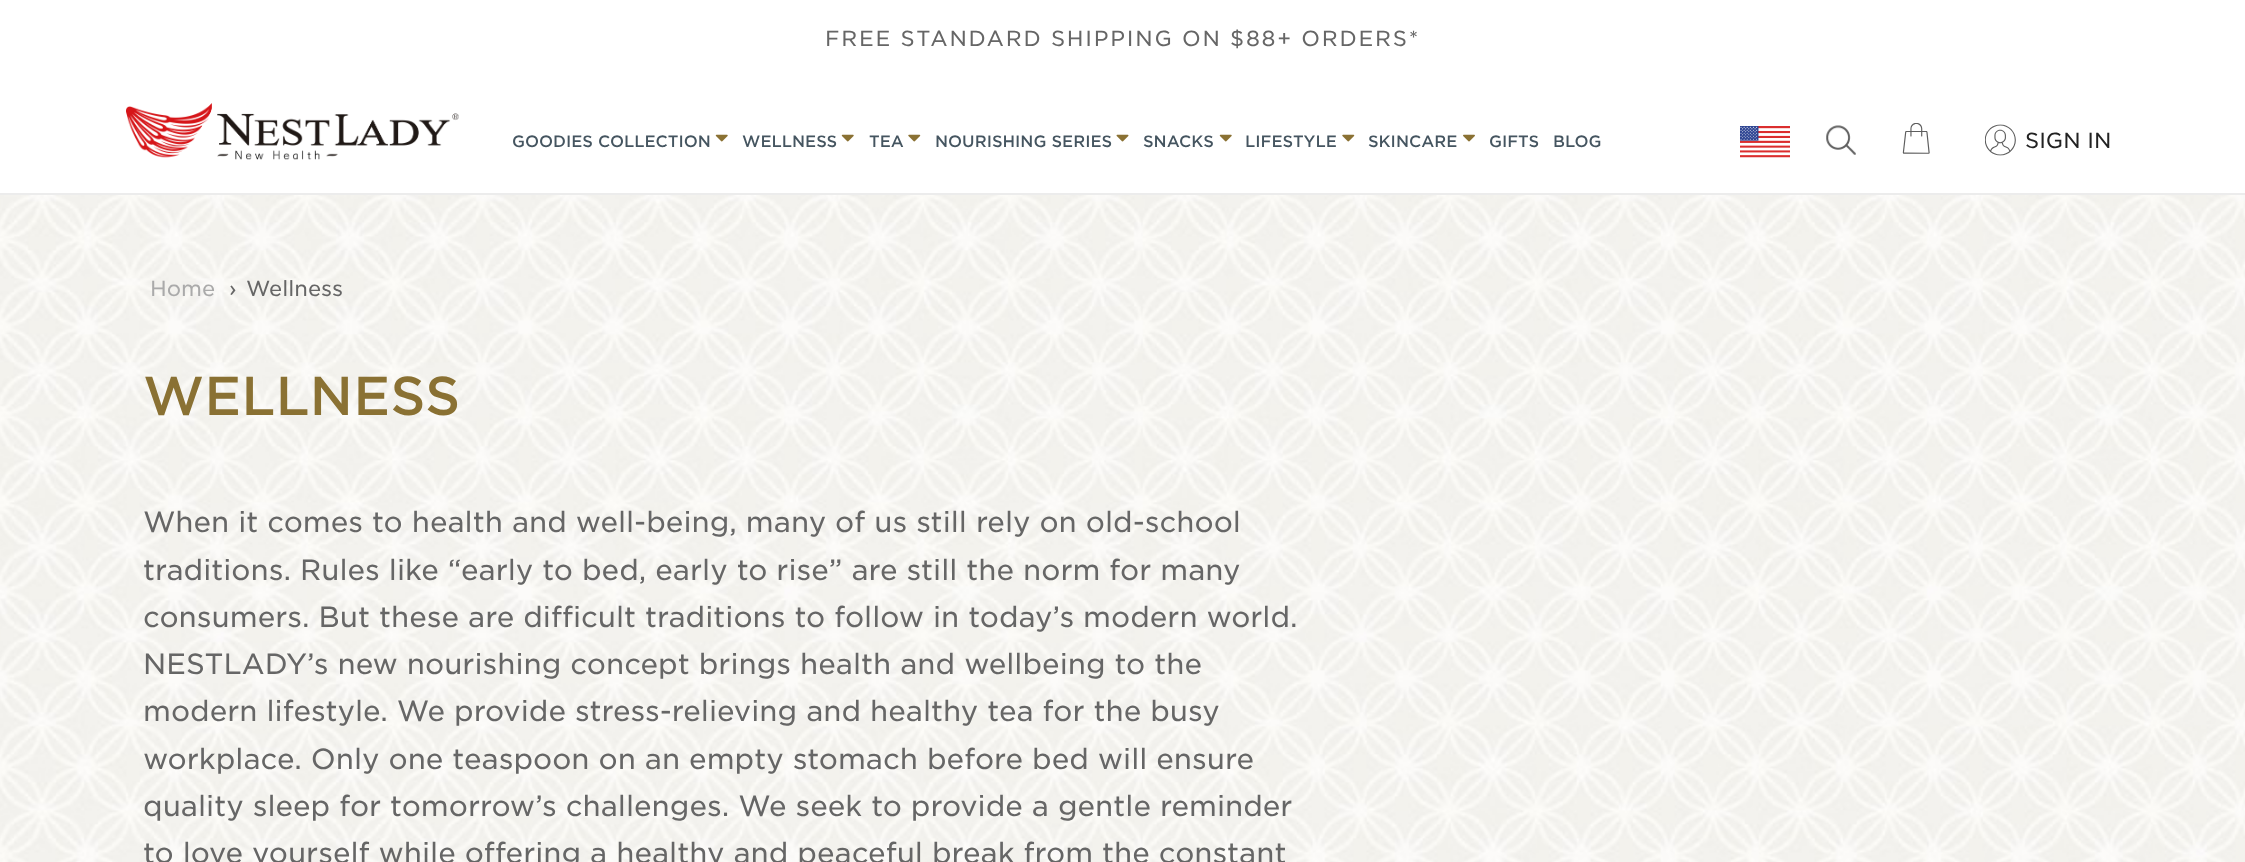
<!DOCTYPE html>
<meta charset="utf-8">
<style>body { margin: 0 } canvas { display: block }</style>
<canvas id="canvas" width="2245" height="862"></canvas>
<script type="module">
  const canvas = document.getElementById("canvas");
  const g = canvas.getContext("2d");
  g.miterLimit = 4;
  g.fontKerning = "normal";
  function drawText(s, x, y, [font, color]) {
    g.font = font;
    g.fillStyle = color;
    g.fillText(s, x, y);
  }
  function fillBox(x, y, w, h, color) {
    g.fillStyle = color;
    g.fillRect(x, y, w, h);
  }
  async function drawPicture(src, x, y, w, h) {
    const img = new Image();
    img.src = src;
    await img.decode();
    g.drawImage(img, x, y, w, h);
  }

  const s1 = ["300 21px 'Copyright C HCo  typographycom'", "#666666"];
  const s2 = ["300 15.75px 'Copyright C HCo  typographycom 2'", "#455560"];
  const s3 = ["300 21px 'Copyright C HCo  typographycom'", "#222222"];
  const s4 = ["300 21px 'Copyright C HCo  typographycom'", "#AAAAAA"];
  const s5 = ["300 52.5px 'Copyright C HCo  typographycom 2'", "#8A7133"];
  const s6 = ["300 28px 'Copyright C HCo  typographycom'", "#666666"];

  fillBox(0, 0, 2245, 862, "#FFFFFF");
  g.letterSpacing = "1.75px";
  drawText("FREE STANDARD SHIPPING ON $88+ ORDERS*", 825, 46, s1);
  fillBox(0, 193, 2245, 2, "#ECECEC");
  await drawPicture("pic1.png", 126, 103, 333, 57);
  g.letterSpacing = "0px";
  drawText("GOODIES COLLECTION", 512, 147, s2);
  await drawPicture("pic2.png", 715, 134, 13, 8);
  drawText("WELLNESS", 742, 147, s2);
  await drawPicture("pic2.png", 841, 134, 13, 8);
  drawText("TEA", 869, 147, s2);
  await drawPicture("pic3.png", 908, 134, 13, 8);
  drawText("NOURISHING SERIES", 935, 147, s2);
  await drawPicture("pic4.png", 1116, 134, 13, 8);
  drawText("SNACKS", 1143, 147, s2);
  await drawPicture("pic2.png", 1219, 134, 13, 8);
  drawText("LIFESTYLE", 1245, 147, s2);
  await drawPicture("pic3.png", 1342, 134, 13, 8);
  drawText("SKINCARE", 1368, 147, s2);
  await drawPicture("pic5.png", 1463, 134, 12, 8);
  drawText("GIFTS", 1489, 147, s2);
  drawText("BLOG", 1553, 147, s2);
  await drawPicture("pic6.png", 1740, 126, 50, 32);
  await drawPicture("pic7.png", 1826, 125, 30, 30);
  await drawPicture("pic8.png", 1902, 123, 28, 31);
  await drawPicture("pic9.png", 1985, 124, 31, 32);
  drawText("SIGN IN", 2025, 148, s3);
  await drawPicture("pic10.png", 0, 195, 2245, 667);
  drawText("Home", 150, 296, s4);
  drawText("›", 229, 296, s1);
  drawText("Wellness", 246, 296, s1);
  drawText("WELLNESS", 143, 415, s5);
  drawText("When it comes to health and well-being, many of us still rely on old-school", 143, 532, s6);
  drawText("traditions. Rules like “early to bed, early to rise” are still the norm for many", 143, 580, s6);
  drawText("consumers. But these are difficult traditions to follow in today’s modern world.", 143, 627, s6);
  drawText("NESTLADY’s new nourishing concept brings health and wellbeing to the", 143, 674, s6);
  drawText("modern lifestyle. We provide stress-relieving and healthy tea for the busy", 143, 721, s6);
  drawText("workplace. Only one teaspoon on an empty stomach before bed will ensure", 143, 769, s6);
  drawText("quality sleep for tomorrow’s challenges. We seek to provide a gentle reminder", 143, 816, s6);
  drawText("to love yourself while offering a healthy and peaceful break from the constant", 143, 863, s6);
</script>
